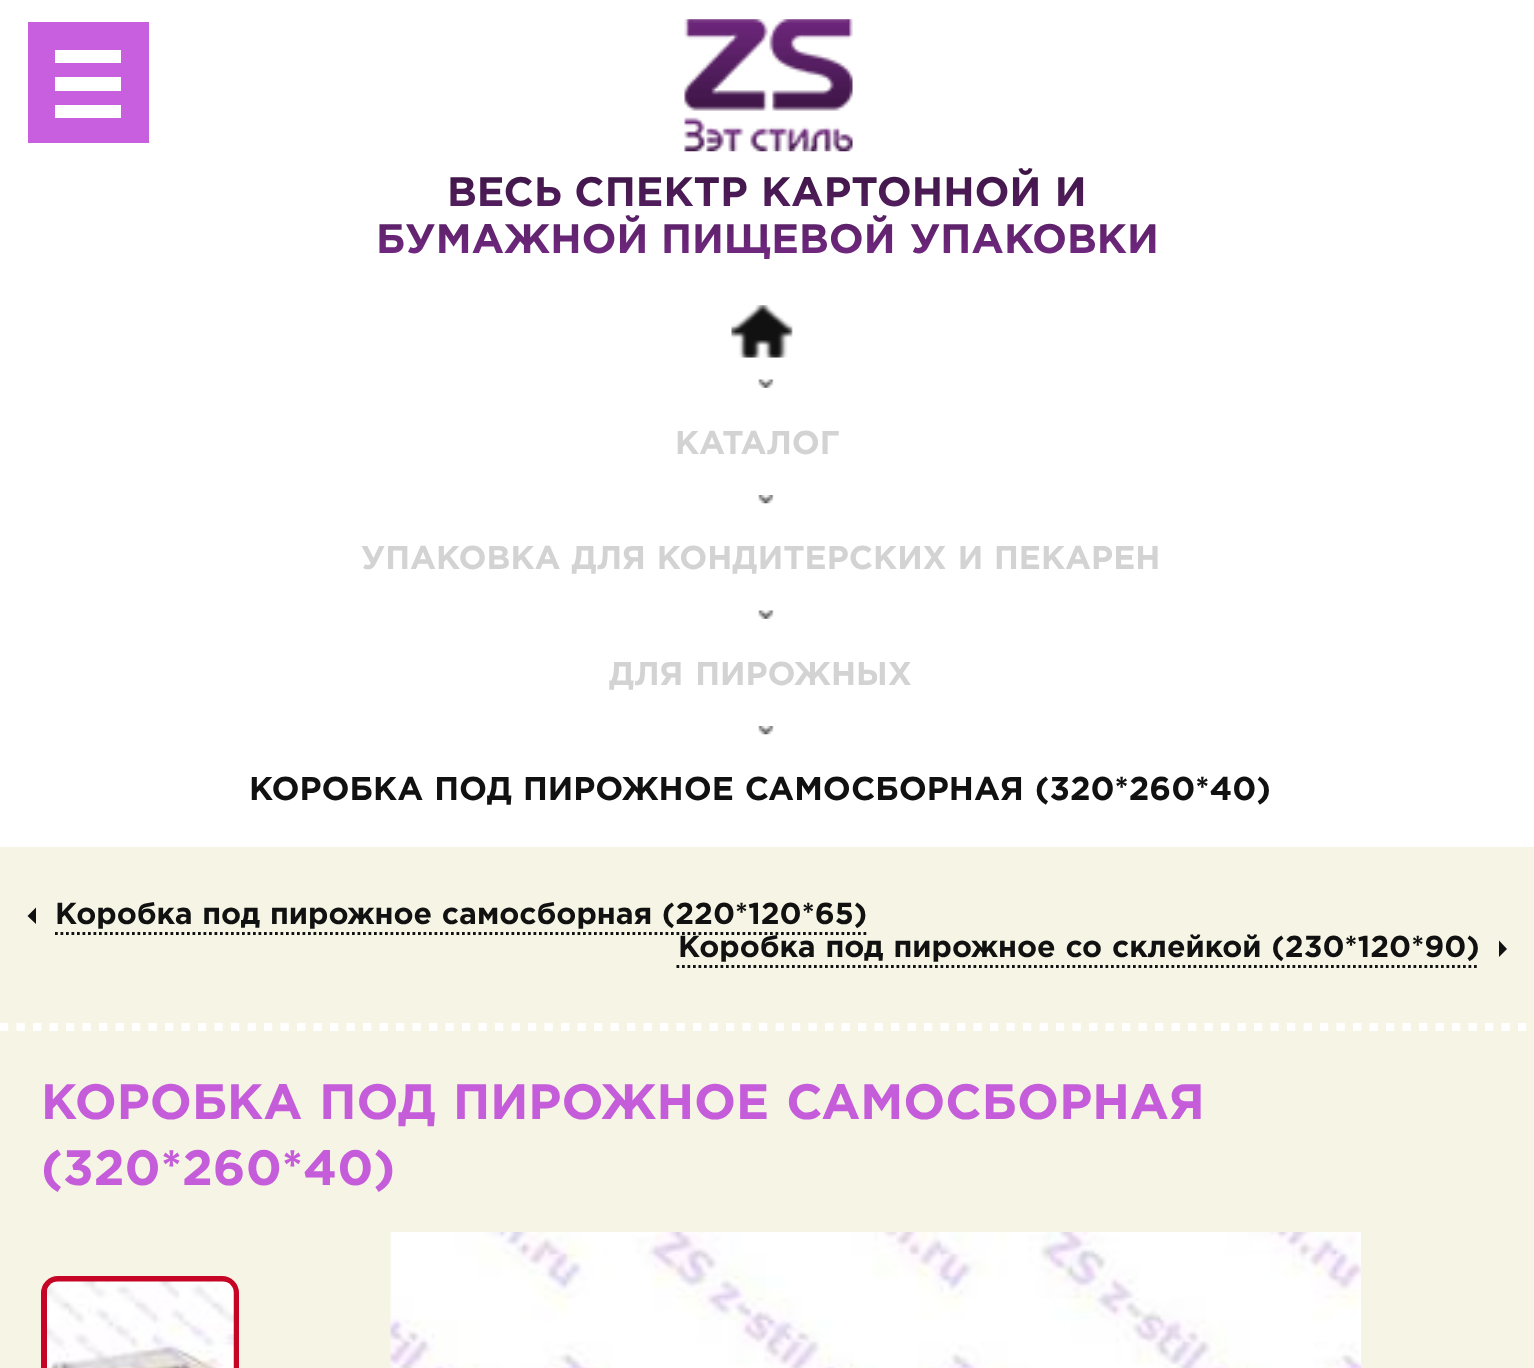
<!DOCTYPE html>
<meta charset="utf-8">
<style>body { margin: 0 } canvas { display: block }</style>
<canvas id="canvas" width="1534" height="1368"></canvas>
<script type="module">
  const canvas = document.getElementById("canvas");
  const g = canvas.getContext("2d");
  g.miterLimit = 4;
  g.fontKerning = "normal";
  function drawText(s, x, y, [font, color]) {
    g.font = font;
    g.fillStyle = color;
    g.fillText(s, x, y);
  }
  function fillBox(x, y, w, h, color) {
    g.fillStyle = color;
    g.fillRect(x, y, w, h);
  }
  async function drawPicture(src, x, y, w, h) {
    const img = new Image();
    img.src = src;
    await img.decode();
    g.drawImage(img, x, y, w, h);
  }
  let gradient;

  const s1 = ["bold 33px Gotham", "#D3D3D3"];
  const s2 = ["bold 33px Gotham", "#111111"];
  const s3 = ["bold 30.25px Gotham", "#111111"];
  const s4 = ["bold 49.5px Gotham", "#C55DDB"];

  fillBox(0, 0, 1534, 1368, "#FFFFFF");
  fillBox(28, 22, 121, 121, "#C75FDE");
  fillBox(55, 77, 66, 14, "#FFFFFF");
  fillBox(55, 50, 66, 13, "#FFFFFF");
  fillBox(55, 105, 66, 13, "#FFFFFF");
  await drawPicture("pic1.png", 684, 19, 169, 133);
  g.font = "bold 41.25px Gotham";
  gradient = g.createLinearGradient(767, 170, 767, 264);
  gradient.addColorStop(0, "#3C1544");
  gradient.addColorStop(1, "#762A86");
  g.fillStyle = gradient;
  g.fillText("ВЕСЬ СПЕКТР", 447, 206);
  g.wordSpacing = "1px";
  g.fillText("КАРТОННОЙ И", 761, 206);
  g.wordSpacing = "0px";
  g.fillText("БУМАЖНОЙ", 376, 253);
  g.wordSpacing = "2px";
  g.fillText("ПИЩЕВОЙ УПАКОВКИ", 661, 253);
  await drawPicture("pic2.png", 731, 305, 62, 53);
  await drawPicture("pic3.png", 758, 379, 16, 9);
  g.wordSpacing = "0px";
  drawText("КАТАЛОГ", 675, 454, s1);
  await drawPicture("pic4.png", 758, 495, 16, 9);
  g.wordSpacing = "1px";
  drawText("УПАКОВКА ДЛЯ КОНДИТЕРСКИХ И ПЕКАРЕН", 361, 569, s1);
  await drawPicture("pic3.png", 758, 610, 16, 9);
  g.wordSpacing = "2px";
  drawText("ДЛЯ ПИРОЖНЫХ", 609, 685, s1);
  await drawPicture("pic4.png", 758, 726, 16, 9);
  g.wordSpacing = "1px";
  drawText("КОРОБКА ПОД ПИРОЖНОЕ САМОСБОРНАЯ (320*260*40)", 249, 800, s2);
  fillBox(0, 847, 1534, 521, "#F6F5E5");
  g.beginPath();
  g.moveTo(55, 933.5);
  g.lineTo(869, 933.5);
  g.strokeStyle = "#111111";
  g.lineWidth = 2.8;
  g.setLineDash([2.75, 2.75]);
  g.stroke();
  g.fillStyle = "#111111";
  g.beginPath();
  g.moveTo(36, 907.5);
  g.lineTo(36, 924);
  g.lineTo(27.5, 916);
  g.closePath();
  g.fill();
  g.wordSpacing = "0.5px";
  drawText("Коробка под пирожное самосборная (220*120*65)", 55, 924, s3);
  g.beginPath();
  g.moveTo(676.5, 966.5);
  g.lineTo(1479.5, 966.5);
  g.stroke();
  g.wordSpacing = "0.75px";
  drawText("Коробка под пирожное со склейкой (230*120*90)", 678, 957, s3);
  g.beginPath();
  g.moveTo(1499, 957);
  g.lineTo(1499, 940.5);
  g.lineTo(1507, 949);
  g.closePath();
  g.fill();
  g.beginPath();
  g.moveTo(0, 1027);
  g.lineTo(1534.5, 1027);
  g.strokeStyle = "#FFFFFF";
  g.lineWidth = 8.2;
  g.setLineDash([8.25, 8.25]);
  g.stroke();
  g.wordSpacing = "2px";
  drawText("КОРОБКА ПОД ПИРОЖНОЕ САМОСБОРНАЯ", 41, 1119, s4);
  g.wordSpacing = "0px";
  drawText("(320*260*40)", 41, 1185, s4);
  g.beginPath();
  g.roundRect(44, 1279, 192, 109, 14);
  g.strokeStyle = "#C60425";
  g.lineWidth = 6;
  g.setLineDash([]);
  g.stroke();
  await drawPicture("pic5.png", 47, 1281, 187, 87);
  await drawPicture("pic6.png", 390, 1232, 971, 136);
</script>
